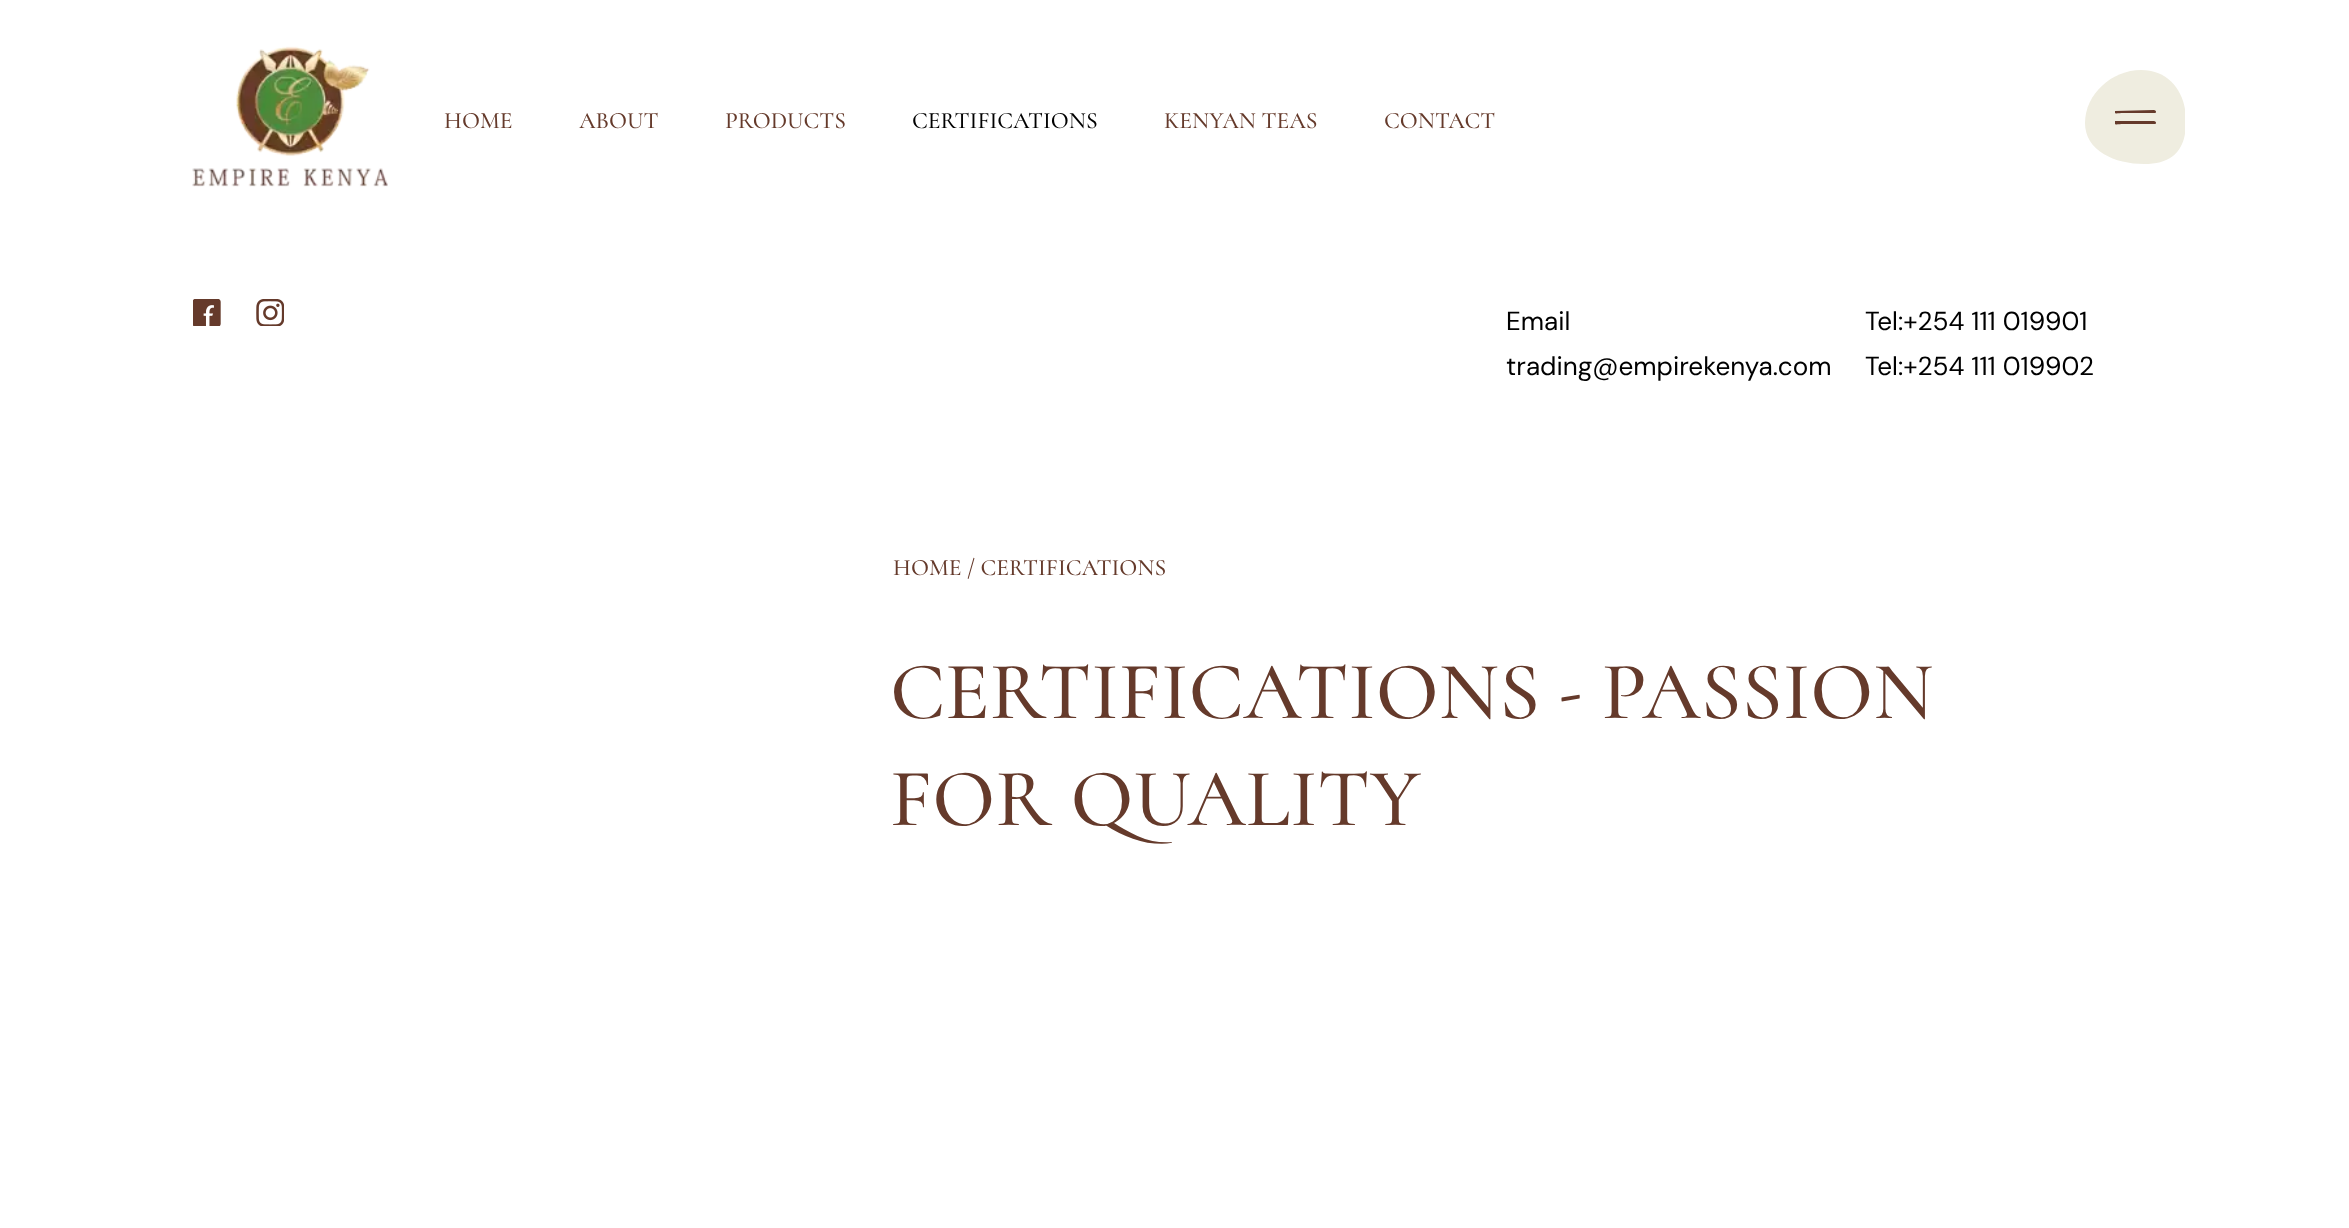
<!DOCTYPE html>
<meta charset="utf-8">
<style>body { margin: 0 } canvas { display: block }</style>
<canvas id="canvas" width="2349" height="1228"></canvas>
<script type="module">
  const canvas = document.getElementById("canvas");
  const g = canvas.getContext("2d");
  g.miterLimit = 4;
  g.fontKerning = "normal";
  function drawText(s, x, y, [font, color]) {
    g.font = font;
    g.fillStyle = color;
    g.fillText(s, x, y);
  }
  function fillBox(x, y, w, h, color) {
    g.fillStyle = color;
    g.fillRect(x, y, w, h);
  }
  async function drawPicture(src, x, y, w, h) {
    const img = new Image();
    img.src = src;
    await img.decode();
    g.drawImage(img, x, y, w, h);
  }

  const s1 = ["500 23.5px Cormorant Unicase", "#653A2B"];
  const s2 = ["500 23.5px Cormorant Unicase", "#000000"];
  const s3 = ["26.1px DM Sans", "#000000"];
  const s4 = ["500 82.25px Cormorant Unicase", "#653A2B"];

  fillBox(0, 0, 2349, 1228, "#FFFFFF");
  await drawPicture("pic1.png", 192, 46, 196, 141);
  drawText("HOME", 444, 128, s1);
  drawText("ABOUT", 579, 128, s1);
  drawText("PRODUCTS", 725, 128, s1);
  drawText("CERTIFICATIONS", 912, 128, s2);
  drawText("KENYAN TEAS", 1164, 128, s1);
  drawText("CONTACT", 1384, 128, s1);
  g.save();
  g.beginPath();
  g.rect(2085, 70, 100, 95);
  g.clip();
  g.fillStyle = "#EFEDE0";
  g.beginPath();
  g.moveTo(2141, 70);
  g.bezierCurveTo(2170, 70, 2186, 93, 2186, 121);
  g.bezierCurveTo(2186, 150, 2173, 164, 2144, 164);
  g.bezierCurveTo(2115, 164, 2085, 151, 2085, 123);
  g.bezierCurveTo(2085, 94, 2112, 70, 2141, 70);
  g.closePath();
  g.fill();
  g.restore();
  g.beginPath();
  g.moveTo(2154, 121);
  g.lineTo(2115, 121);
  g.lineTo(2115, 124);
  g.bezierCurveTo(2115, 125, 2120, 124, 2123, 124);
  g.lineTo(2155, 124);
  g.bezierCurveTo(2157, 124, 2156, 121, 2154, 121);
  g.closePath();
  g.moveTo(2154, 110);
  g.lineTo(2115, 111);
  g.lineTo(2115, 113);
  g.bezierCurveTo(2115, 114, 2120, 113, 2123, 113);
  g.lineTo(2155, 113);
  g.bezierCurveTo(2157, 113, 2156, 110, 2154, 110);
  g.closePath();
  g.fill();
  await drawPicture("pic2.png", 193, 299, 28, 27);
  await drawPicture("pic3.png", 256, 299, 28, 27);
  drawText("Email", 1506, 330, s3);
  drawText("trading@empirekenya.com", 1506, 375, s3);
  drawText("Tel:+254 111 019901", 1865, 330, s3);
  drawText("Tel:+254 111 019902", 1865, 375, s3);
  drawText("HOME / CERTIFICATIONS", 893, 575, s1);
  drawText("CERTIFICATIONS - PASSION", 890, 718, s4);
  drawText("FOR QUALITY", 890, 825, s4);
</script>
